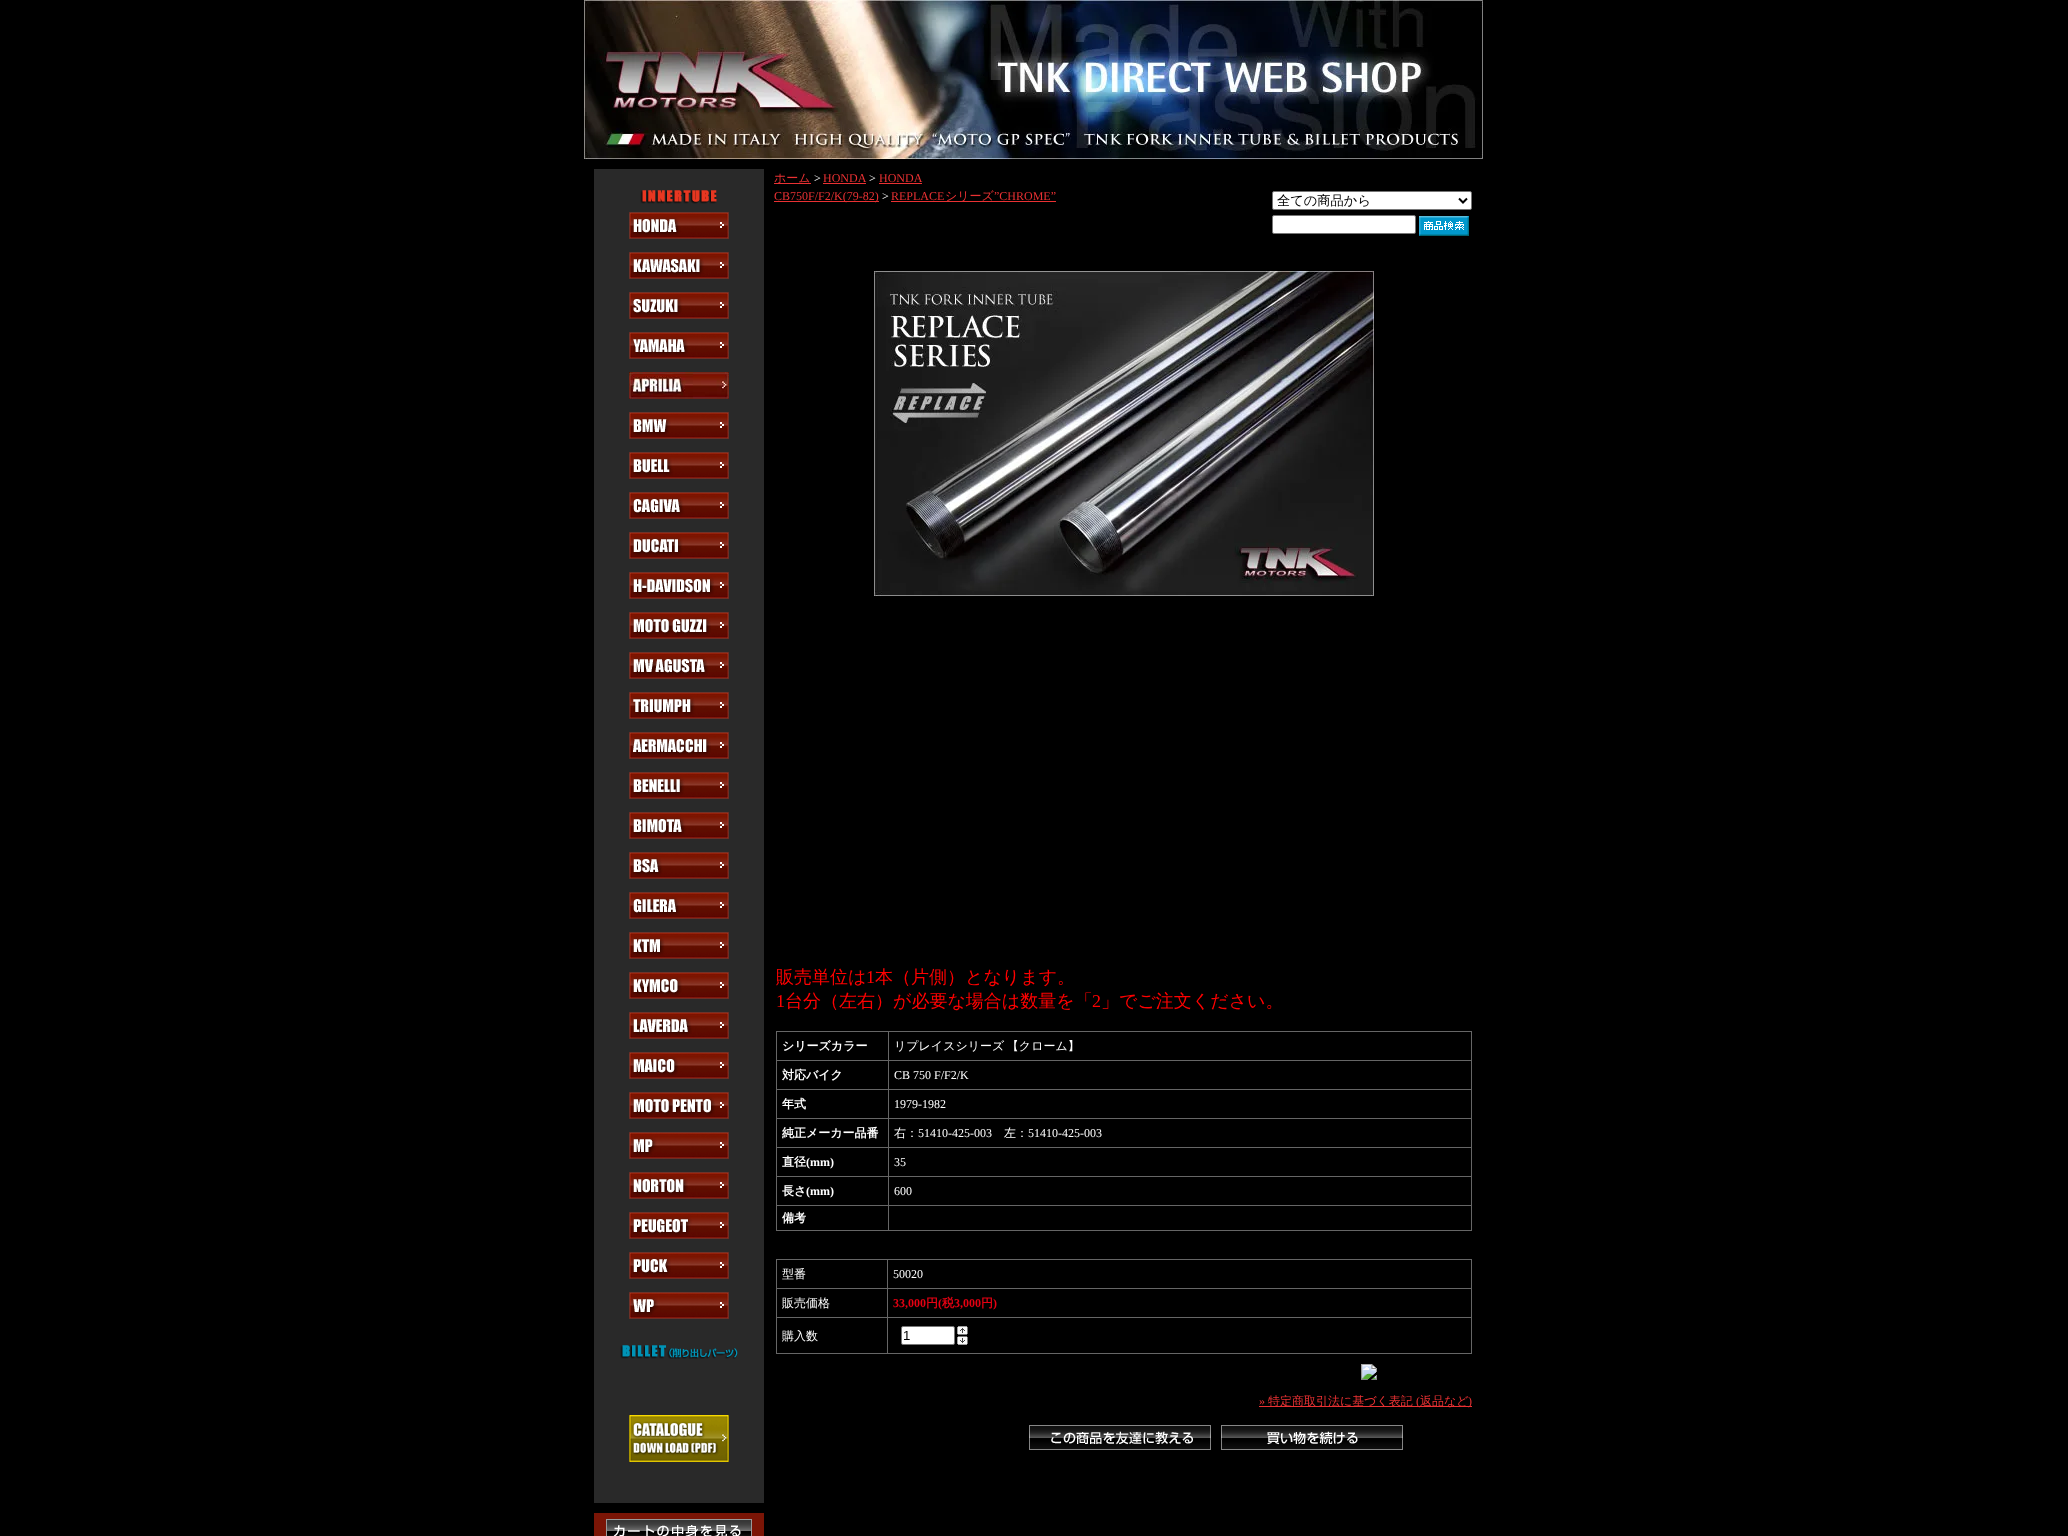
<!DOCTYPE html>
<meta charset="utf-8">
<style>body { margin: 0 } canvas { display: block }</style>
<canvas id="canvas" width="2068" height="1536"></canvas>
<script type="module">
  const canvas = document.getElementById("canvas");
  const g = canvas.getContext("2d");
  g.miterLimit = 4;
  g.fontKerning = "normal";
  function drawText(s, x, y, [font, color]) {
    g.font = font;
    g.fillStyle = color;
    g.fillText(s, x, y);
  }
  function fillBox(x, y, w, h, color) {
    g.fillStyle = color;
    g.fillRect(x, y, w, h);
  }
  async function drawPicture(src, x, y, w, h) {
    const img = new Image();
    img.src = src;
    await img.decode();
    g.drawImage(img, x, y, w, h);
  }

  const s1 = ["500 12px WenQuanYi Zen Hei", "#EA3133"];
  const s2 = ["12px Liberation Serif", "#FFFFFF"];
  const s3 = ["12px Liberation Serif", "#EA3133"];
  const s4 = ["500 18px WenQuanYi Zen Hei", "#FF0000"];
  const s5 = ["18px Liberation Serif", "#FF0000"];
  const s6 = ["bold 12px WenQuanYi Zen Hei", "#FFFFFF"];
  const s7 = ["500 12px WenQuanYi Zen Hei", "#FFFFFF"];
  const s8 = ["bold 12px Liberation Serif", "#FFFFFF"];
  const s9 = ["bold 12px Liberation Serif", "#E60012"];
  const s10 = ["bold 12px WenQuanYi Zen Hei", "#E60012"];
  const s11 = ["13.25px Liberation Sans", "#000000"];
  const s12 = ["500 13.25px WenQuanYi Zen Hei", "#000000"];

  fillBox(0, 0, 2068, 1536, "#000000");
  await drawPicture("pic1.png", 584, 0, 899, 159);
  fillBox(594, 169, 170, 1334, "#292929");
  await drawPicture("pic2.png", 640, 190, 77, 14);
  await drawPicture("pic3.png", 629, 212, 100, 27);
  await drawPicture("pic4.png", 629, 252, 100, 27);
  await drawPicture("pic5.png", 629, 292, 100, 27);
  await drawPicture("pic6.png", 629, 332, 100, 27);
  await drawPicture("pic7.png", 629, 372, 100, 27);
  await drawPicture("pic8.png", 629, 412, 100, 27);
  await drawPicture("pic9.png", 629, 452, 100, 27);
  await drawPicture("pic10.png", 629, 492, 100, 27);
  await drawPicture("pic11.png", 629, 532, 100, 27);
  await drawPicture("pic12.png", 629, 572, 100, 27);
  await drawPicture("pic13.png", 629, 612, 100, 27);
  await drawPicture("pic14.png", 629, 652, 100, 27);
  await drawPicture("pic15.png", 629, 692, 100, 27);
  await drawPicture("pic16.png", 629, 732, 100, 27);
  await drawPicture("pic17.png", 629, 772, 100, 27);
  await drawPicture("pic18.png", 629, 812, 100, 27);
  await drawPicture("pic19.png", 629, 852, 100, 27);
  await drawPicture("pic20.png", 629, 892, 100, 27);
  await drawPicture("pic21.png", 629, 932, 100, 27);
  await drawPicture("pic22.png", 629, 972, 100, 27);
  await drawPicture("pic23.png", 629, 1012, 100, 27);
  await drawPicture("pic24.png", 629, 1052, 100, 27);
  await drawPicture("pic25.png", 629, 1092, 100, 27);
  await drawPicture("pic26.png", 629, 1132, 100, 27);
  await drawPicture("pic27.png", 629, 1172, 100, 27);
  await drawPicture("pic28.png", 629, 1212, 100, 27);
  await drawPicture("pic29.png", 629, 1252, 100, 27);
  await drawPicture("pic30.png", 629, 1292, 100, 27);
  await drawPicture("pic31.png", 620, 1345, 118, 14);
  await drawPicture("pic32.png", 629, 1415, 100, 47);
  fillBox(594, 1513, 170, 23, "#7B1506");
  await drawPicture("pic33.png", 606, 1519, 146, 17);
  fillBox(774, 183, 37, 1, "#EA3133");
  drawText("ホーム", 774, 182, s1);
  drawText(">", 814, 182, s2);
  drawText("HONDA", 823, 182, s3);
  fillBox(823, 183, 43, 1, "#EA3133");
  drawText(">", 869, 182, s2);
  drawText("HONDA", 879, 182, s3);
  fillBox(879, 183, 43, 1, "#EA3133");
  fillBox(774, 201, 105, 1, "#EA3133");
  drawText("CB750F/F2/K(79-82)", 774, 200, s3);
  drawText(">", 882, 200, s2);
  drawText("REPLACE", 891, 200, s3);
  fillBox(891, 201, 165, 1, "#EA3133");
  drawText("シリーズ", 945, 200, s1);
  drawText("”CHROME”", 994, 200, s3);
  await drawPicture("pic34.png", 874, 271, 500, 325);
  drawText("販売単位は", 776, 983, s4);
  drawText("1", 866, 983, s5);
  drawText("本（片側）となります。", 875, 983, s4);
  drawText("1", 776, 1007, s5);
  drawText("台分（左右）が必要な場合は数量を「", 785, 1007, s4);
  drawText("2", 1092, 1007, s5);
  drawText("」でご注文ください。", 1101, 1007, s4);
  fillBox(776, 1031, 696, 1, "#666666");
  fillBox(1471, 1031, 1, 200, "#666666");
  fillBox(776, 1230, 696, 1, "#666666");
  fillBox(776, 1031, 1, 200, "#666666");
  fillBox(888, 1205, 1, 26, "#666666");
  fillBox(888, 1205, 584, 1, "#666666");
  fillBox(888, 1176, 1, 30, "#666666");
  fillBox(888, 1176, 584, 1, "#666666");
  fillBox(888, 1147, 1, 30, "#666666");
  fillBox(888, 1147, 584, 1, "#666666");
  fillBox(888, 1118, 1, 30, "#666666");
  fillBox(888, 1118, 584, 1, "#666666");
  fillBox(888, 1089, 1, 30, "#666666");
  fillBox(888, 1089, 584, 1, "#666666");
  fillBox(888, 1060, 1, 30, "#666666");
  fillBox(888, 1060, 584, 1, "#666666");
  fillBox(888, 1031, 1, 30, "#666666");
  fillBox(776, 1060, 113, 1, "#666666");
  drawText("シリーズカラー", 782, 1050, s6);
  g.wordSpacing = "-1px";
  drawText("リプレイスシリーズ 【クローム】", 894, 1050, s7);
  fillBox(776, 1089, 113, 1, "#666666");
  g.wordSpacing = "0px";
  drawText("対応バイク", 782, 1079, s6);
  drawText("CB 750 F/F2/K", 894, 1079, s2);
  fillBox(776, 1118, 113, 1, "#666666");
  drawText("年式", 782, 1108, s6);
  drawText("1979-1982", 894, 1108, s2);
  fillBox(776, 1147, 113, 1, "#666666");
  drawText("純正メーカー品番", 782, 1137, s6);
  drawText("右：", 894, 1137, s7);
  drawText("51410-425-003", 918, 1137, s2);
  drawText("左：", 1004, 1137, s7);
  drawText("51410-425-003", 1028, 1137, s2);
  fillBox(776, 1176, 113, 1, "#666666");
  drawText("直径", 782, 1166, s6);
  drawText("(mm)", 806, 1166, s8);
  drawText("35", 894, 1166, s2);
  fillBox(776, 1205, 113, 1, "#666666");
  drawText("長さ", 782, 1195, s6);
  drawText("(mm)", 806, 1195, s8);
  drawText("600", 894, 1195, s2);
  drawText("備考", 782, 1222, s6);
  fillBox(776, 1259, 696, 95, "#666666");
  fillBox(777, 1260, 110, 28, "#000000");
  drawText("型番", 782, 1278, s7);
  fillBox(888, 1260, 583, 28, "#000000");
  drawText("50020", 893, 1278, s2);
  fillBox(777, 1289, 110, 28, "#000000");
  drawText("販売価格", 782, 1307, s7);
  fillBox(888, 1289, 583, 28, "#000000");
  drawText("33,000", 893, 1307, s9);
  drawText("円", 926, 1307, s10);
  drawText("(", 938, 1307, s9);
  drawText("税", 942, 1307, s10);
  drawText("3,000", 954, 1307, s9);
  drawText("円", 981, 1307, s10);
  drawText(")", 993, 1307, s9);
  fillBox(777, 1318, 110, 35, "#000000");
  drawText("購入数", 782, 1340, s7);
  fillBox(888, 1318, 583, 35, "#000000");
  g.fillStyle = "#FFFFFF";
  g.beginPath();
  g.roundRect(901.5, 1326.5, 53, 18, 1.5);
  g.fill();
  g.strokeStyle = "#767676";
  g.stroke();
  drawText("1", 903, 1340, s11);
  await drawPicture("pic35.png", 957, 1326, 11, 9);
  await drawPicture("pic36.png", 957, 1336, 11, 9);
  await drawPicture("pic37.png", 1361, 1364, 16, 16);
  drawText("»", 1259, 1405, s3);
  fillBox(1259, 1406, 213, 1, "#EA3133");
  drawText("特定商取引法に基づく表記", 1268, 1405, s1);
  drawText("(", 1416, 1405, s3);
  drawText("返品など", 1420, 1405, s1);
  drawText(")", 1468, 1405, s3);
  await drawPicture("pic38.png", 1029, 1425, 182, 25);
  await drawPicture("pic39.png", 1221, 1425, 182, 25);
  g.fillStyle = "#FFFFFF";
  g.beginPath();
  g.roundRect(1272.5, 191.5, 199, 18, 1.5);
  g.fill();
  g.stroke();
  g.beginPath();
  g.moveTo(1459, 198.5);
  g.lineTo(1463, 202.5);
  g.lineTo(1467, 198.5);
  g.strokeStyle = "#000000";
  g.lineWidth = 2;
  g.stroke();
  drawText("全ての商品から", 1277, 205, s12);
  g.fillStyle = "#FFFFFF";
  g.beginPath();
  g.roundRect(1272.5, 215.5, 143, 18, 1.5);
  g.fill();
  g.strokeStyle = "#767676";
  g.lineWidth = 1;
  g.stroke();
  await drawPicture("pic40.png", 1419, 216, 50, 20);
</script>
